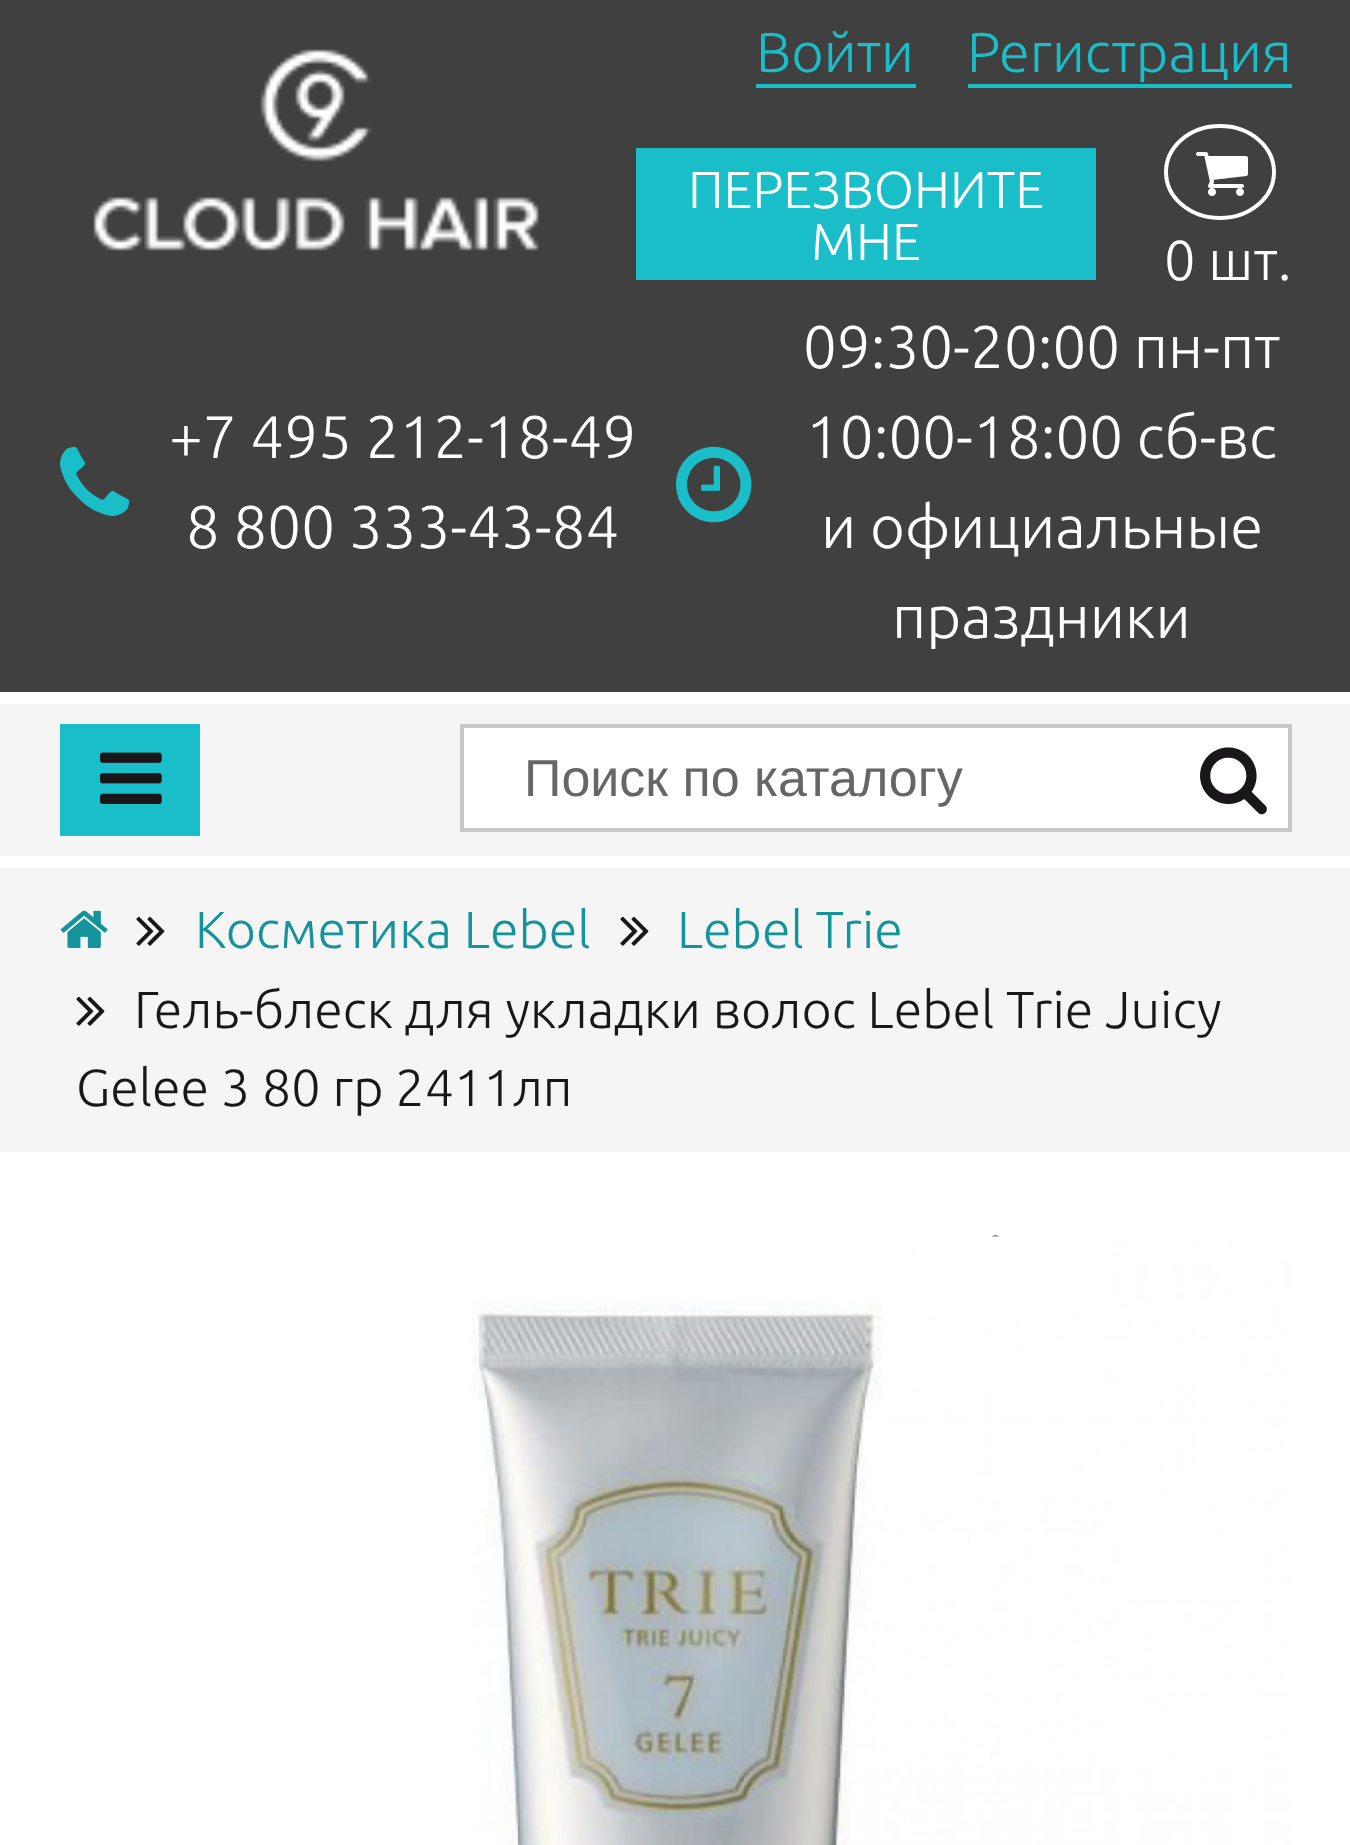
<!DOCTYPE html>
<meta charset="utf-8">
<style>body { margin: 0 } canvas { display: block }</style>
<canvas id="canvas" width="1350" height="1845"></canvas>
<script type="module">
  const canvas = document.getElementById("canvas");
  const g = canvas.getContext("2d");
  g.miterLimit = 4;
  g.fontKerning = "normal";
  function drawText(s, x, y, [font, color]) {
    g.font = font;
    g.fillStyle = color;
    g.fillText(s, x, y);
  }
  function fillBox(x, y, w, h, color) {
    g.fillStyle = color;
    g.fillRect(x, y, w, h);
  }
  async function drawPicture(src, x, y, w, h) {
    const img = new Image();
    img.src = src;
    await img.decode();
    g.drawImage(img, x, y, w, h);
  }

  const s1 = ["300 56px Ubuntu", "#1ABEC8"];
  const s2 = ["300 52px Ubuntu", "#FFFFFF"];
  const s3 = ["300 56px Ubuntu", "#FFFFFF"];
  const s4 = ["300 60px Ubuntu", "#FFFFFF"];
  const s5 = ["52px Liberation Sans", "#666666"];
  const s6 = ["300 52px Ubuntu", "#14939B"];
  const s7 = ["300 52px Ubuntu", "#1A171B"];

  fillBox(0, 0, 1350, 1845, "#FFFFFF");
  fillBox(0, 0, 1350, 692, "#404040");
  await drawPicture("pic1.png", 93, 49, 446, 202);
  drawText("Войти", 756, 72, s1);
  fillBox(756, 84, 160, 4, "#1ABEC8");
  drawText("Регистрация", 967, 72, s1);
  fillBox(968, 84, 324, 4, "#1ABEC8");
  fillBox(636, 148, 460, 132, "#1ABEC8");
  drawText("ПЕРЕЗВОНИТЕ", 688, 208, s2);
  drawText("МНЕ", 811, 260, s2);
  g.beginPath();
  g.moveTo(1220, 126);
  g.bezierCurveTo(1250, 126, 1274, 146.5, 1274, 172);
  g.bezierCurveTo(1274, 197.5, 1250, 218, 1220, 218);
  g.bezierCurveTo(1190, 218, 1166, 197.5, 1166, 172);
  g.bezierCurveTo(1166, 146.5, 1190, 126, 1220, 126);
  g.closePath();
  g.strokeStyle = "#FFFFFF";
  g.lineWidth = 4;
  g.stroke();
  await drawPicture("pic2.png", 1196, 152, 52, 44);
  drawText("0 шт.", 1164, 280, s3);
  await drawPicture("pic3.png", 60, 446, 70, 70);
  drawText("+7 495 212-18-49", 169, 458, s4);
  drawText("8 800 333-43-84", 186, 548, s4);
  await drawPicture("pic4.png", 676, 446, 76, 77);
  drawText("09:30-20:00 пн-пт", 803, 368, s4);
  drawText("10:00-18:00 сб-вс", 806, 458, s4);
  drawText("и официальные", 821, 548, s4);
  drawText("праздники", 892, 638, s4);
  fillBox(0, 704, 1350, 152, "#F5F5F5");
  fillBox(60, 724, 140, 112, "#1ABEC8");
  await drawPicture("pic5.png", 100, 752, 62, 52);
  g.fillStyle = "#FFFFFF";
  g.beginPath();
  g.rect(462, 726, 828, 104);
  g.fill();
  g.strokeStyle = "#C8C8C8";
  g.stroke();
  drawText("Поиск по каталогу", 524, 796, s5);
  await drawPicture("pic6.png", 1200, 747, 67, 68);
  fillBox(0, 868, 1350, 284, "#F5F5F5");
  await drawPicture("pic7.png", 60, 910, 48, 38);
  await drawPicture("pic8.png", 136, 916, 29, 30);
  drawText("Косметика Lebel", 195, 948, s6);
  await drawPicture("pic8.png", 620, 916, 29, 30);
  drawText("Lebel Trie", 677, 948, s6);
  await drawPicture("pic8.png", 76, 996, 29, 30);
  drawText("Гель-блеск для укладки волос Lebel Trie Juicy", 134, 1028, s7);
  drawText("Gelee 3 80 гр 2411лп", 76, 1106, s7);
  await drawPicture("pic9.png", 992, 1235, 8, 2);
  await drawPicture("pic10.png", 471, 1236, 821, 609);
</script>
